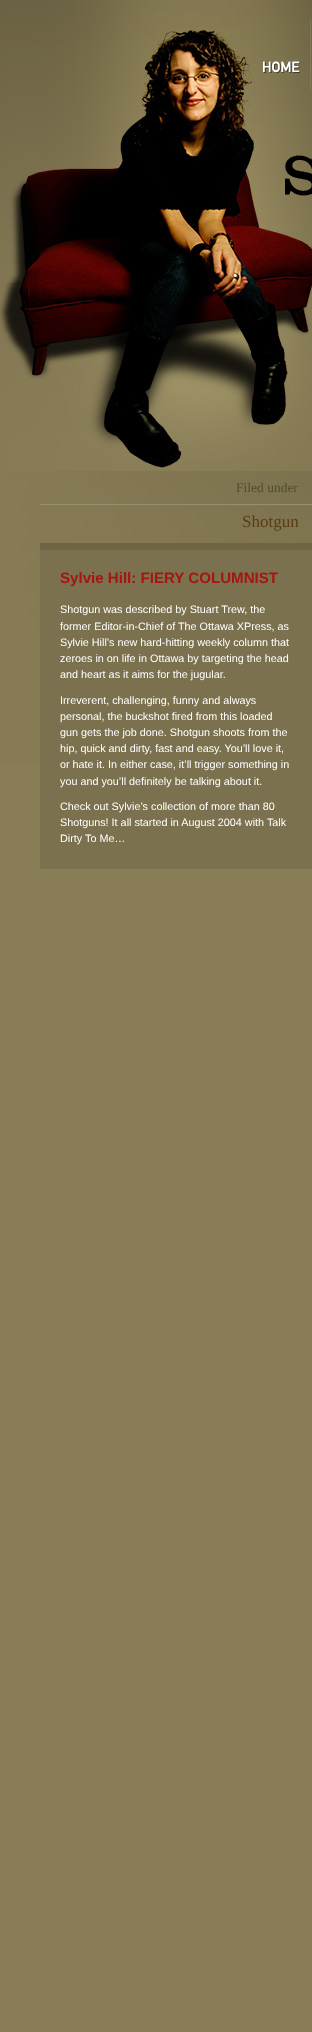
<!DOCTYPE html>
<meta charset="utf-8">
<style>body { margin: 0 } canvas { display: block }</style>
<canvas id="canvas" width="312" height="2032"></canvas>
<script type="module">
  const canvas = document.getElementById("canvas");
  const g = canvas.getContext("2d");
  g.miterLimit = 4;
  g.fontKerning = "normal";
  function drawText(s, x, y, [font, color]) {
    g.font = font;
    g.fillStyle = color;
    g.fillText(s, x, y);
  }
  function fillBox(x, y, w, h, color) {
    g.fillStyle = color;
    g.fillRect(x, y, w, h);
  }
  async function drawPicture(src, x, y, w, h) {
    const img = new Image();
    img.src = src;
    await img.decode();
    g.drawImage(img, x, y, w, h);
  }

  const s1 = ["13.5px Liberation Serif", "#524C32"];
  const s2 = ["17px Liberation Serif", "#583D13"];
  const s3 = ["bold 15.1px Liberation Sans", "#A7150E"];
  const s4 = ["10.8px Liberation Sans", "#FFFFFF"];

  fillBox(0, 0, 312, 2032, "#897D57");
  await drawPicture("pic1.png", 0, 471, 312, 292);
  await drawPicture("pic2.png", 0, 0, 312, 471);
  await drawPicture("pic3.png", 263, 19, 48, 73);
  await drawPicture("pic4.png", 285, 155, 27, 41);
  drawText("Filed under", 236, 492, s1);
  fillBox(40, 504, 272, 1, "#998F6F");
  drawText("Shotgun", 242, 527, s2);
  fillBox(40, 550, 272, 319, "#7B714E");
  fillBox(40, 543, 272, 7, "#6E6544");
  drawText("Sylvie Hill: FIERY COLUMNIST", 60, 583, s3);
  drawText("Shotgun was described by Stuart Trew, the", 60, 613, s4);
  drawText("former Editor-in-Chief of The Ottawa XPress, as", 60, 630, s4);
  drawText("Sylvie Hill’s new hard-hitting weekly column that", 60, 646, s4);
  drawText("zeroes in on life in Ottawa by targeting the head", 60, 662, s4);
  drawText("and heart as it aims for the jugular.", 60, 678, s4);
  drawText("Irreverent, challenging, funny and always", 60, 704, s4);
  drawText("personal, the buckshot fired from this loaded", 60, 720, s4);
  drawText("gun gets the job done. Shotgun shoots from the", 60, 736, s4);
  drawText("hip, quick and dirty, fast and easy. You’ll love it,", 60, 752, s4);
  drawText("or hate it. In either case, it’ll trigger something in", 60, 768, s4);
  drawText("you and you’ll definitely be talking about it.", 60, 785, s4);
  drawText("Check out Sylvie’s collection of more than 80", 60, 810, s4);
  drawText("Shotguns! It all started in August 2004 with Talk", 60, 826, s4);
  drawText("Dirty To Me…", 60, 842, s4);
</script>
